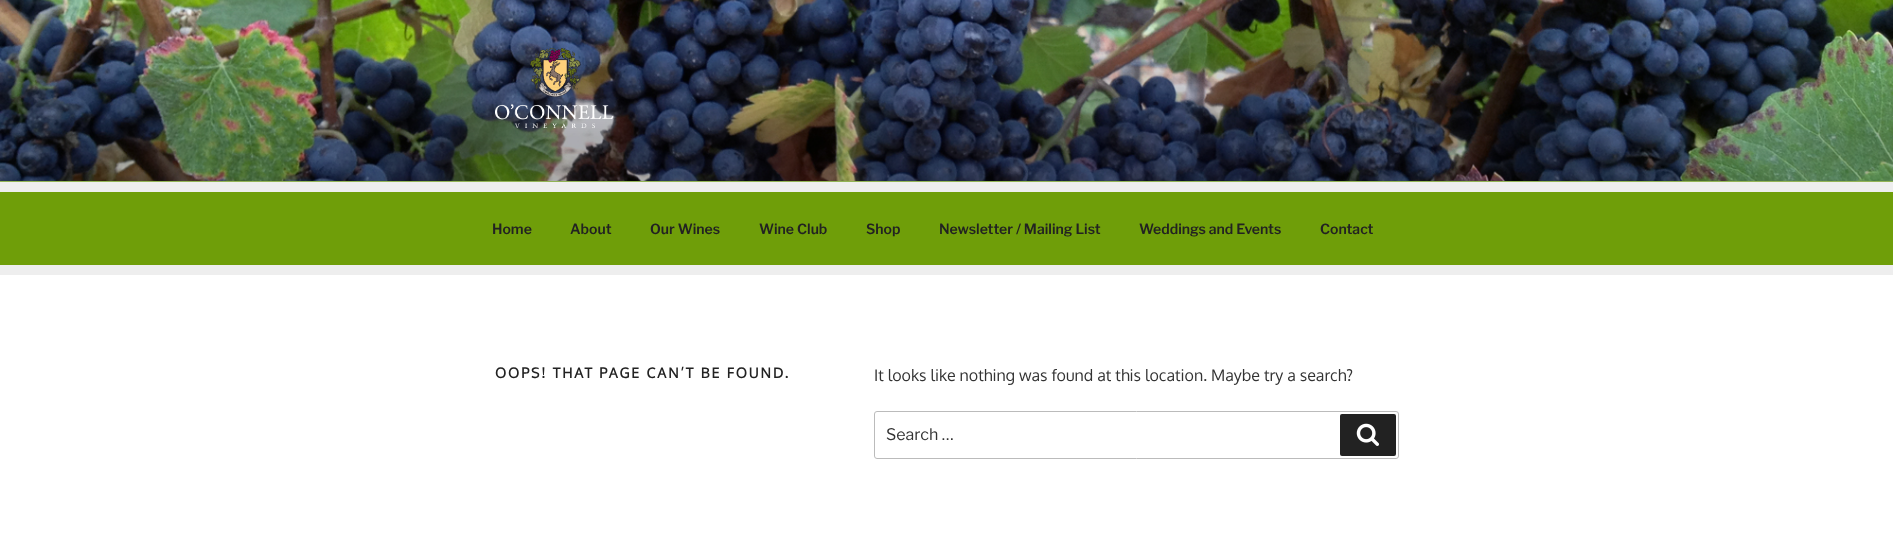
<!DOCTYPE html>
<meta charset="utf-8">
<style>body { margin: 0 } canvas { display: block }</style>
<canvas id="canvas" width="1893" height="535"></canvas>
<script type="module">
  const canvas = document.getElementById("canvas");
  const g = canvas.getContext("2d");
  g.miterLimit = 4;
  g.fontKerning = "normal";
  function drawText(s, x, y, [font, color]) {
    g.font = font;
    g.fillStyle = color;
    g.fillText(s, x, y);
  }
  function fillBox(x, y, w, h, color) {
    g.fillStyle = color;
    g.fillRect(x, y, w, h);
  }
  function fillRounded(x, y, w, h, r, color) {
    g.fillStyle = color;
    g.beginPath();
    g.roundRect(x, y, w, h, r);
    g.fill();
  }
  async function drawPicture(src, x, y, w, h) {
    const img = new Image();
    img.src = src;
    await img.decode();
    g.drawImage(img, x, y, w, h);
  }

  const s1 = ["600 14px Libre Franklin", "#222222"];
  const s2 = ["bold 14px Oxygen", "#222222"];
  const s3 = ["16px Oxygen", "#333333"];
  const s4 = ["100 16px Libre Franklin", "#333333"];

  fillBox(0, 0, 1893, 535, "#FFFFFF");
  fillBox(0, 181, 1893, 1, "#92B355");
  await drawPicture("pic1.png", 0, 0, 1893, 181);
  await drawPicture("pic2.png", 495, 48, 121, 80);
  fillBox(0, 192, 1893, 73, "#6F9E09");
  fillBox(0, 182, 1893, 10, "#EEEEEE");
  fillBox(0, 265, 1893, 10, "#EEEEEE");
  drawText("Home", 492, 234, s1);
  drawText("About", 570, 234, s1);
  drawText("Our Wines", 650, 234, s1);
  drawText("Wine Club", 759, 234, s1);
  drawText("Shop", 866, 234, s1);
  drawText("Newsletter / Mailing List", 939, 234, s1);
  drawText("Weddings and Events", 1139, 234, s1);
  drawText("Contact", 1320, 234, s1);
  g.letterSpacing = "1.95px";
  drawText("OOPS! THAT PAGE CAN’T BE FOUND.", 495, 378, s2);
  g.letterSpacing = "0px";
  drawText("It looks like nothing was found at this location. Maybe try a search?", 874, 381, s3);
  g.beginPath();
  g.roundRect(874.5, 411.5, 524, 47, 2.5);
  g.strokeStyle = "#BBBBBB";
  g.stroke();
  drawText("Search …", 886, 440, s4);
  fillRounded(1340, 414, 56, 42, 2, "#222222");
  await drawPicture("pic3.png", 1356, 423, 23, 23);
</script>
